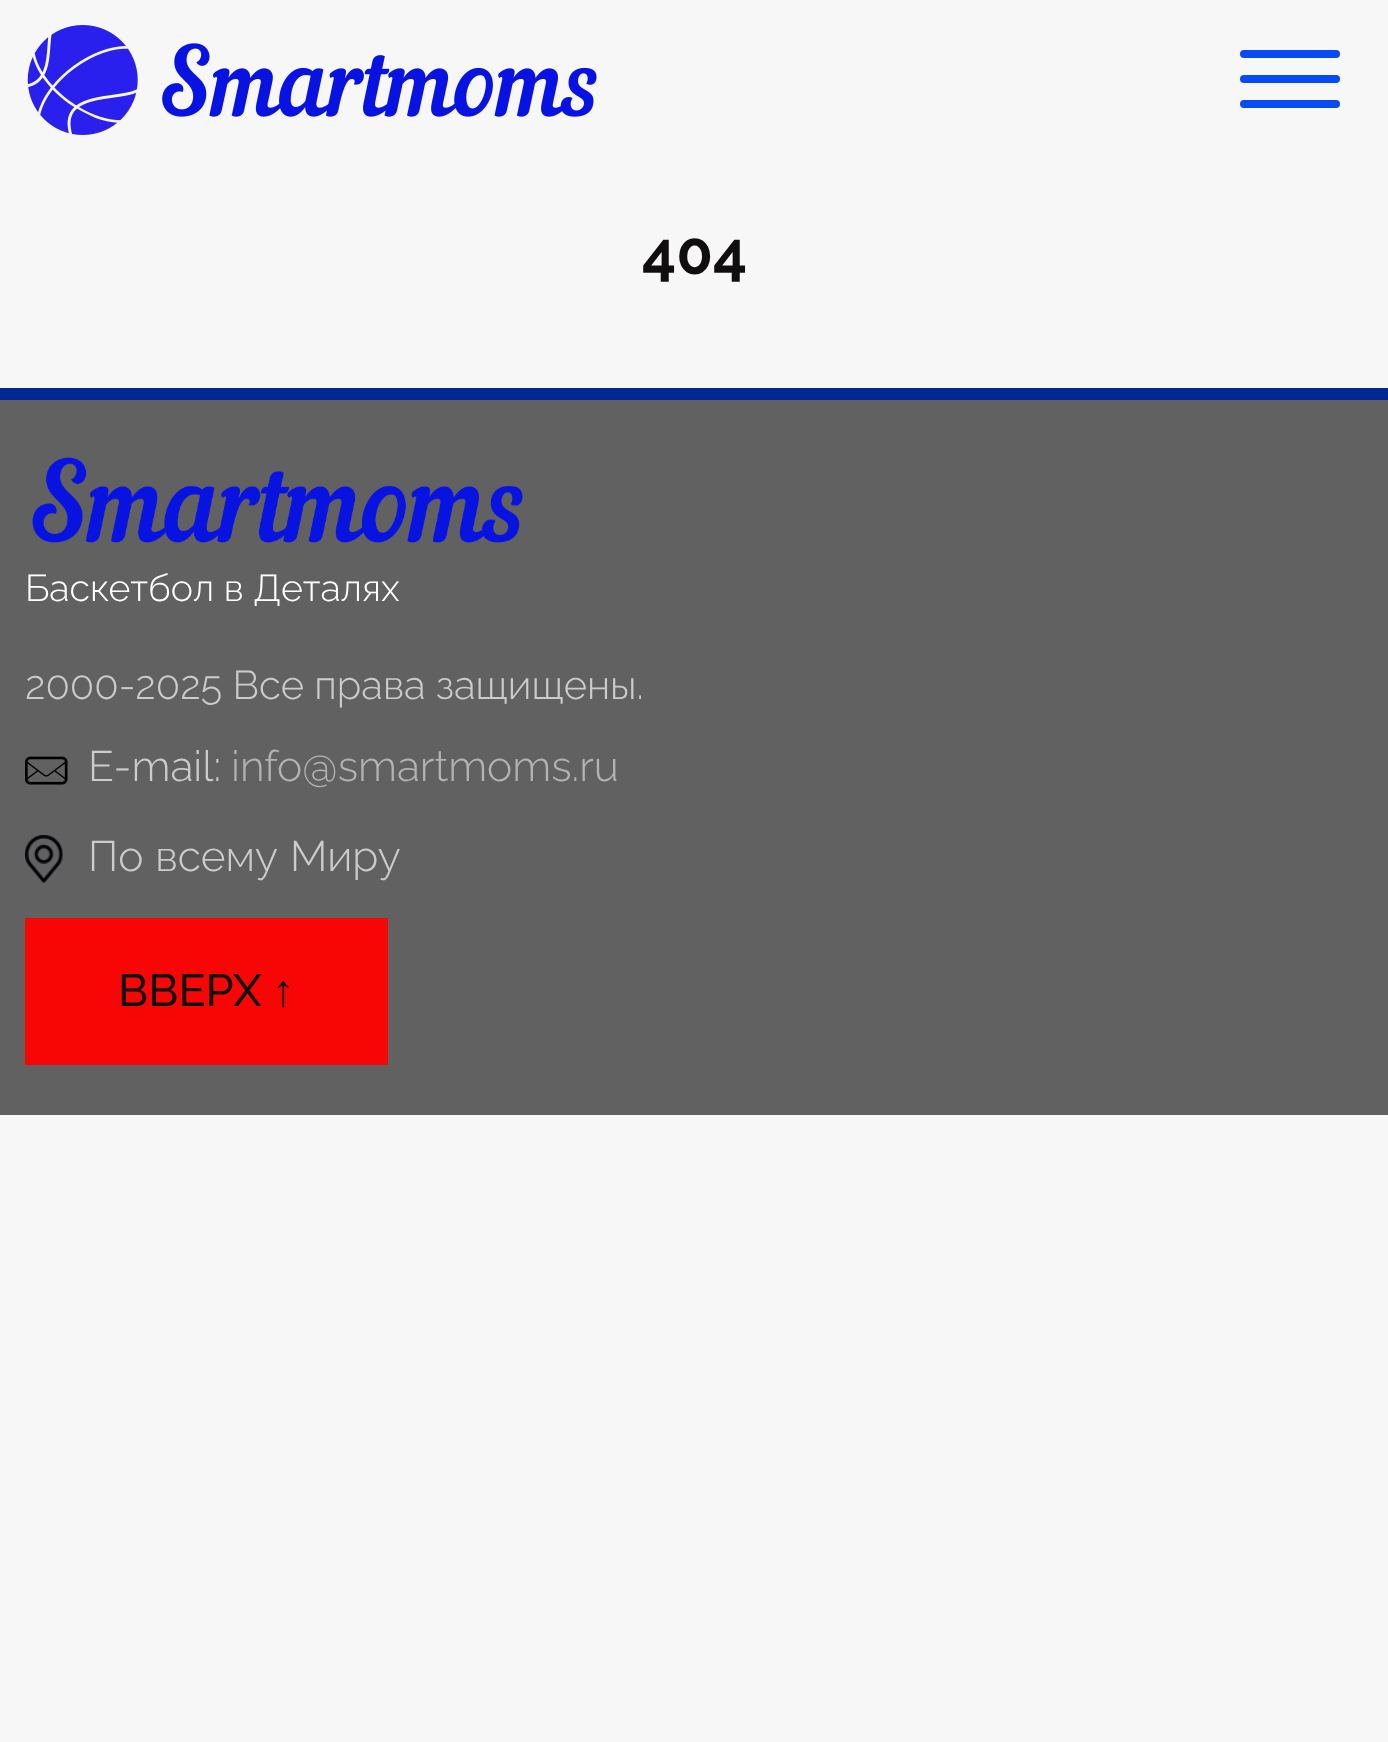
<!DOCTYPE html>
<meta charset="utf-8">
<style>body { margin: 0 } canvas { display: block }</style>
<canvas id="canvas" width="1388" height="1742"></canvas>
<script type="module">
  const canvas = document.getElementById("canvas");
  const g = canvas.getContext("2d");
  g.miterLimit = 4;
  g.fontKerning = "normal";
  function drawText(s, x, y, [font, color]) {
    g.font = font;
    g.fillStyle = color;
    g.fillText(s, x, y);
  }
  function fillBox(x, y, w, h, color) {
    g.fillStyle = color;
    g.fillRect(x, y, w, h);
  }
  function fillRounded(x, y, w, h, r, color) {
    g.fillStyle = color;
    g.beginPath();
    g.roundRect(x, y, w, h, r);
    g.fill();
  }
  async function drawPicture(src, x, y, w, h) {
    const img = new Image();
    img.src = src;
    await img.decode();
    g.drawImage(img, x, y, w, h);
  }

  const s1 = ["bold 60px Raleway", "#100E0E"];
  const s2 = ["300 37.5px Raleway", "#FFFFFF"];
  const s3 = ["300 40px Raleway", "#CCCCCC"];
  const s4 = ["300 42.5px Raleway", "#CCCCCC"];
  const s5 = ["300 42.5px Raleway", "#B4B3B3"];
  const s6 = ["500 45px Raleway", "#100E0E"];
  const s7 = ["45px Liberation Sans", "#100E0E"];

  fillBox(0, 0, 1388, 1742, "#F7F7F7");
  await drawPicture("pic1.png", 27, 25, 570, 110);
  fillRounded(1240, 50, 100, 8, 4, "#094AF7");
  fillRounded(1240, 75, 100, 8, 4, "#094AF7");
  fillRounded(1240, 100, 100, 8, 4, "#094AF7");
  drawText("404", 642, 274, s1);
  fillBox(0, 400, 1388, 715, "#616161");
  fillBox(0, 388, 1388, 12, "#002995");
  await drawPicture("pic2.png", 32, 457, 491, 86);
  drawText("Баскетбол в Деталях", 25, 601, s2);
  drawText("2000-2025 Все права защищены.", 25, 699, s3);
  await drawPicture("pic3.png", 25, 756, 43, 29);
  drawText("E-mail:", 88, 781, s4);
  drawText("info@smartmoms.ru", 231, 781, s5);
  await drawPicture("pic4.png", 25, 835, 38, 48);
  g.wordSpacing = "1px";
  drawText("По всему Миру", 88, 871, s4);
  fillBox(25, 918, 363, 147, "#F80606");
  g.wordSpacing = "0px";
  drawText("ВВЕРХ", 118, 1006, s6);
  drawText("↑", 272, 1006, s7);
</script>
